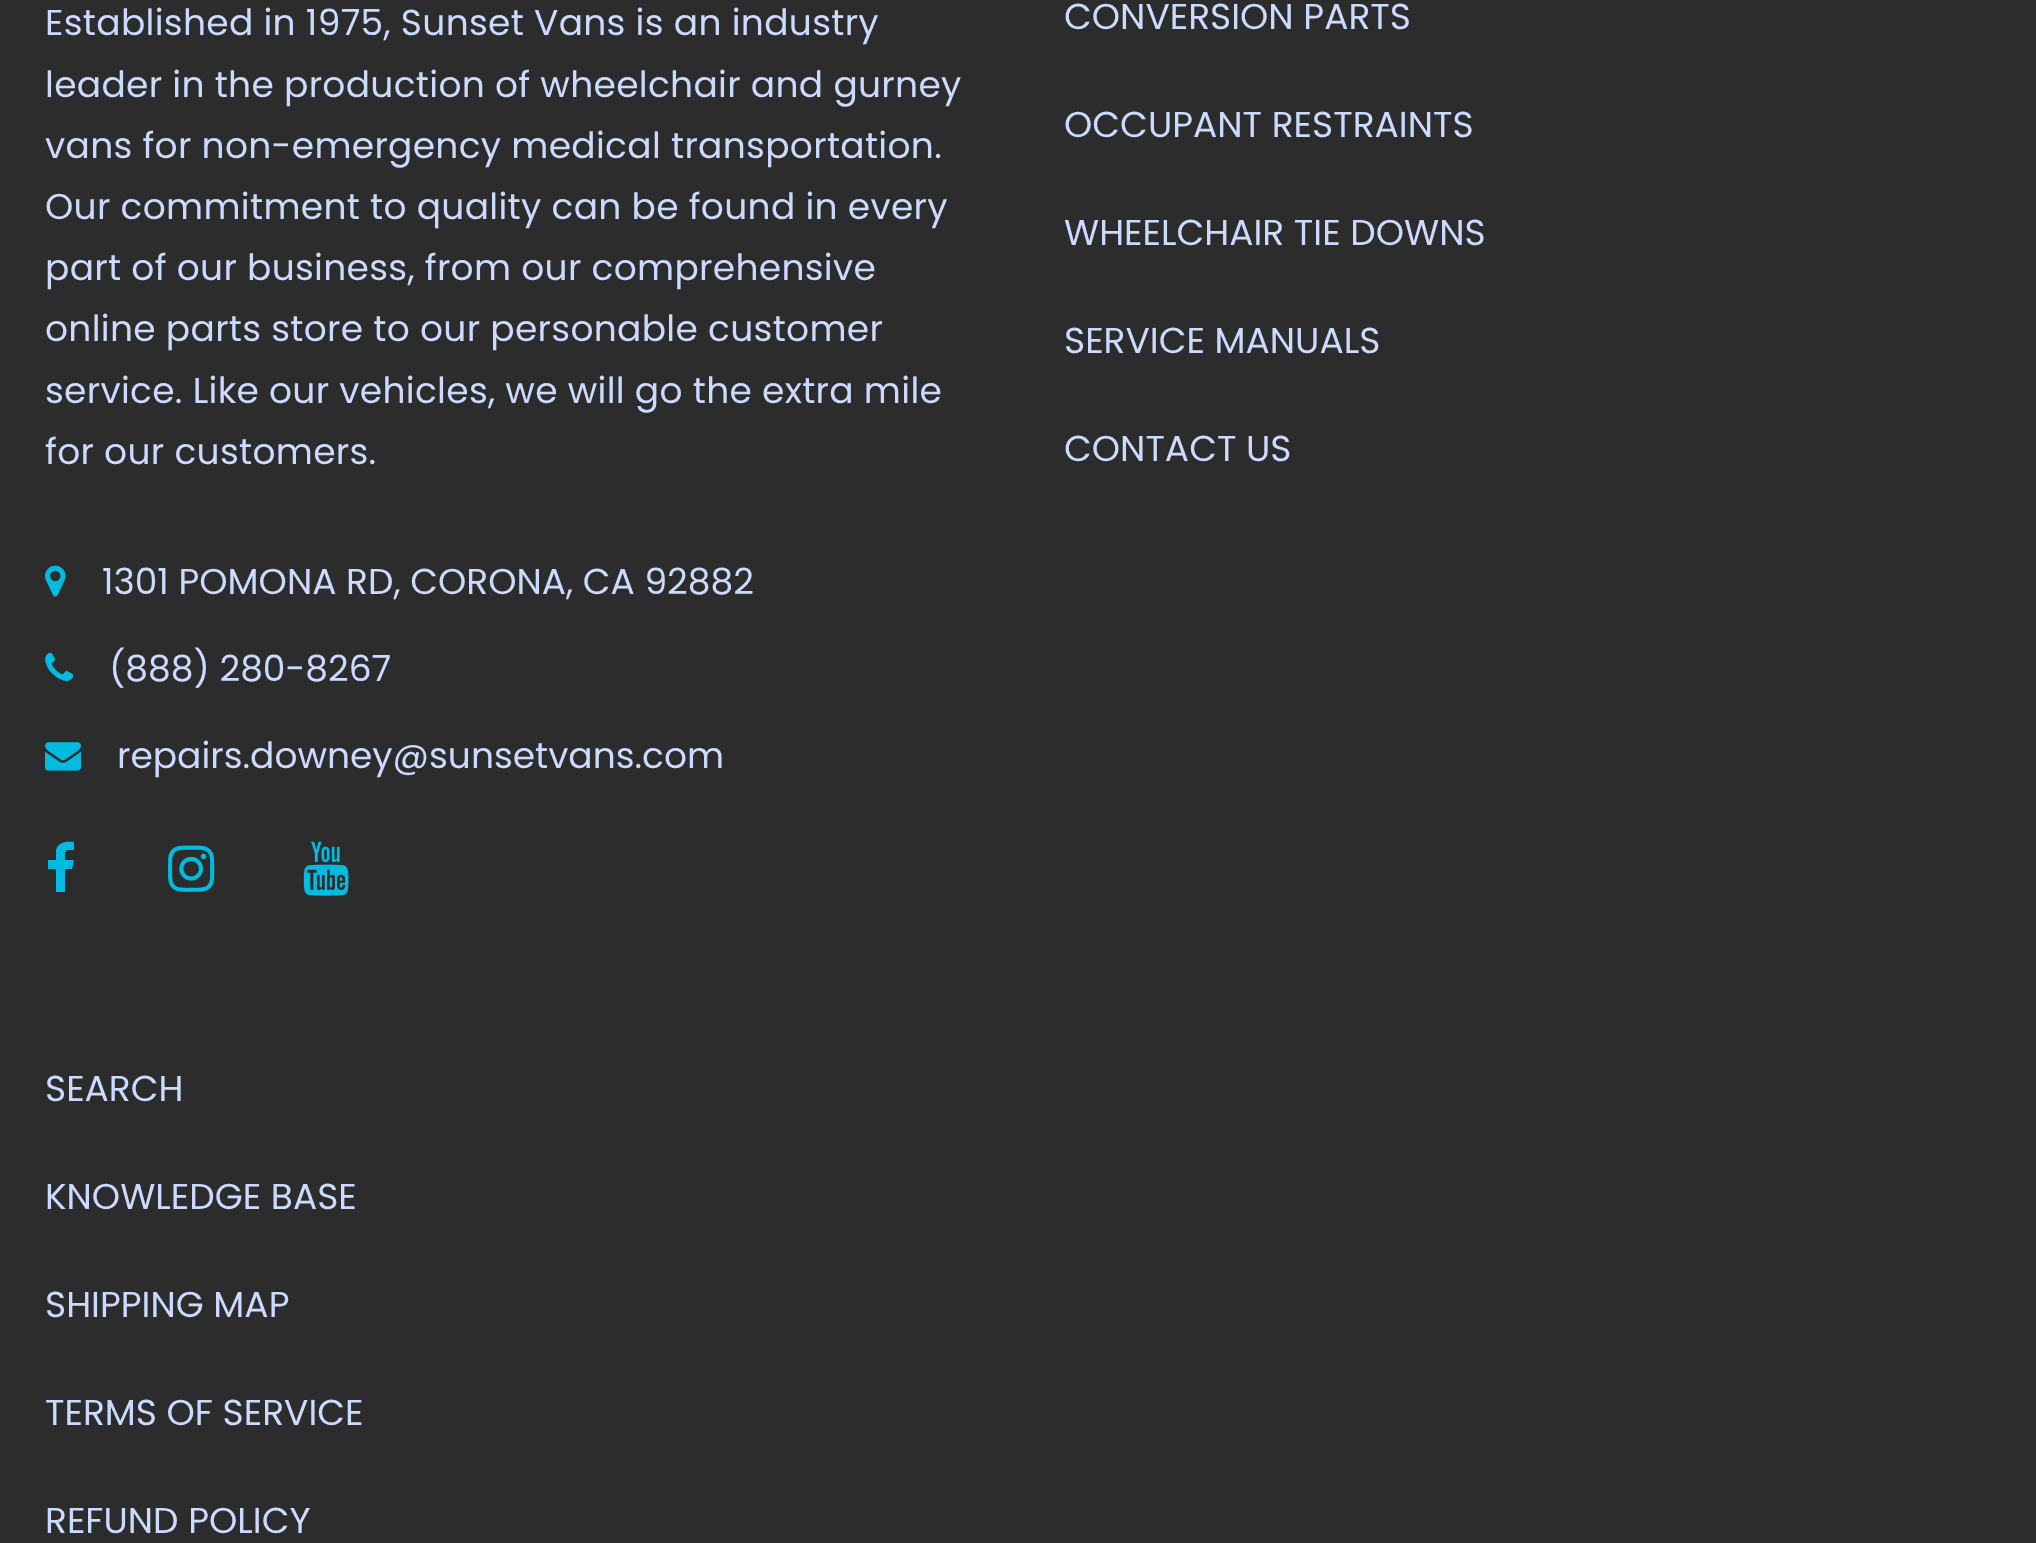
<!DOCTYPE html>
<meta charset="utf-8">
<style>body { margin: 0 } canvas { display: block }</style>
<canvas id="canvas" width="2036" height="1543"></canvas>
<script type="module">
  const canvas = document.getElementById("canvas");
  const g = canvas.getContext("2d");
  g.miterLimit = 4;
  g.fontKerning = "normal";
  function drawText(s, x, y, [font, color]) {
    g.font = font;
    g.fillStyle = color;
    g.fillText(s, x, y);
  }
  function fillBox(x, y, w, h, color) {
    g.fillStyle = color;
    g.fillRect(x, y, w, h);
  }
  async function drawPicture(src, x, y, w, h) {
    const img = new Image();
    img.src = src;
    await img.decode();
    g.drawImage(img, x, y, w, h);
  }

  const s1 = ["36px Poppins", "#CBDBFF"];

  fillBox(0, 0, 2036, 1543, "#2D2C2C");
  g.letterSpacing = "0.3px";
  drawText("Established in 1975, Sunset Vans is an industry", 45, 35, s1);
  drawText("leader in the production of wheelchair and gurney", 45, 97, s1);
  drawText("vans for non-emergency medical transportation.", 45, 158, s1);
  drawText("Our commitment to quality can be found in every", 45, 219, s1);
  drawText("part of our business, from our comprehensive", 45, 280, s1);
  drawText("online parts store to our personable customer", 45, 341, s1);
  drawText("service. Like our vehicles, we will go the extra mile", 45, 403, s1);
  drawText("for our customers.", 45, 464, s1);
  await drawPicture("pic1.png", 45, 565, 21, 32);
  g.letterSpacing = "0px";
  drawText("1301 POMONA RD, CORONA, CA 92882", 102, 594, s1);
  await drawPicture("pic2.png", 45, 652, 29, 29);
  drawText("(888) 280-8267", 109, 681, s1);
  await drawPicture("pic3.png", 45, 742, 36, 29);
  drawText("repairs.downey@sunsetvans.com", 117, 768, s1);
  g.fillStyle = "#02BBE0";
  g.beginPath();
  g.moveTo(74, 842);
  g.lineTo(74, 850);
  g.bezierCurveTo(64, 850, 65, 850, 65, 860);
  g.lineTo(74, 860);
  g.lineTo(72, 869);
  g.lineTo(65, 869);
  g.lineTo(65, 892);
  g.lineTo(56, 892);
  g.lineTo(56, 869);
  g.lineTo(48, 869);
  g.lineTo(48, 860);
  g.lineTo(56, 860);
  g.lineTo(56, 851);
  g.bezierCurveTo(57, 842, 66, 841, 74, 842);
  g.closePath();
  g.fill();
  await drawPicture("pic4.png", 168, 845, 47, 47);
  await drawPicture("pic5.png", 303, 841, 46, 55);
  drawText("CONVERSION PARTS", 1064, 29, s1);
  drawText("OCCUPANT RESTRAINTS", 1064, 137, s1);
  drawText("WHEELCHAIR TIE DOWNS", 1064, 245, s1);
  drawText("SERVICE MANUALS", 1064, 353, s1);
  drawText("CONTACT US", 1064, 461, s1);
  drawText("SEARCH", 45, 1101, s1);
  drawText("KNOWLEDGE BASE", 45, 1209, s1);
  drawText("SHIPPING MAP", 45, 1317, s1);
  drawText("TERMS OF SERVICE", 45, 1425, s1);
  drawText("REFUND POLICY", 45, 1533, s1);
</script>
